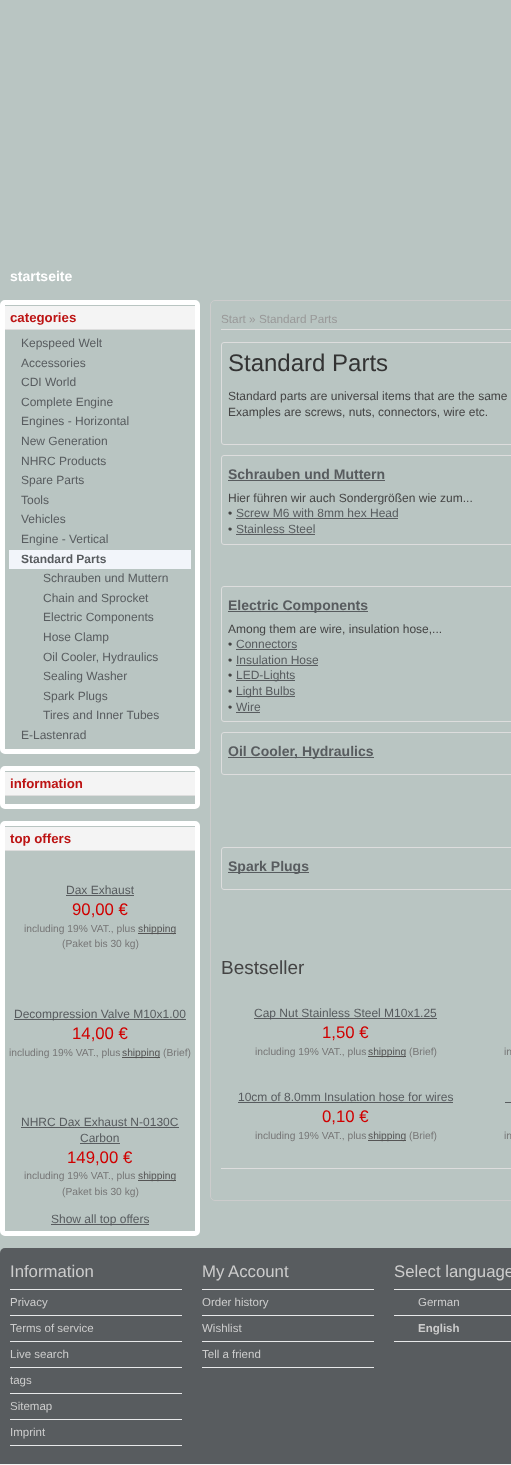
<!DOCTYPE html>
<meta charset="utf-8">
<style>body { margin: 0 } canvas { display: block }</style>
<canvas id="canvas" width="511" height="1465"></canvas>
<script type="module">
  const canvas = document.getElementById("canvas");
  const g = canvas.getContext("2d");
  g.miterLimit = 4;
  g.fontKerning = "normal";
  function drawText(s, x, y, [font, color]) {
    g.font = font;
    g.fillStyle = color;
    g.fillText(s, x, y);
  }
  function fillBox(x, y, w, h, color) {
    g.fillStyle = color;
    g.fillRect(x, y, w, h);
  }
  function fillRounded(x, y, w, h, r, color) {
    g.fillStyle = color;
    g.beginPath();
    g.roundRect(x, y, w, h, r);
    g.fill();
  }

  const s1 = ["bold 14px Liberation Sans", "#FFFFFF"];
  const s2 = ["bold 13.25px Liberation Sans", "#BC1313"];
  const s3 = ["12px Liberation Sans", "#585C5F"];
  const s4 = ["bold 12px Liberation Sans", "#585C5F"];
  const s5 = ["16.75px Liberation Sans", "#D00000"];
  const s6 = ["10.25px Liberation Sans", "#777777"];
  const s7 = ["10.25px Liberation Sans", "#555555"];
  const s8 = ["11.75px Liberation Sans", "#999999"];
  const s9 = ["24px Liberation Sans", "#333333"];
  const s10 = ["12px Liberation Sans", "#444444"];
  const s11 = ["bold 14px Liberation Sans", "#585C5F"];
  const s12 = ["19px Liberation Sans", "#444444"];
  const s13 = ["16.75px Liberation Sans", "#CCCCCC"];
  const s14 = ["11.5px Liberation Sans", "#CCCCCC"];
  const s15 = ["bold 11.5px Liberation Sans", "#CCCCCC"];

  fillBox(0, 0, 511, 1465, "#B9C5C2");
  drawText("startseite", 10, 281, s1);
  g.beginPath();
  g.roundRect(2.5, 302.5, 195, 449, 2.5);
  g.strokeStyle = "#FFFFFF";
  g.lineWidth = 5;
  g.stroke();
  fillBox(5, 306, 190, 23, "#F4F4F4");
  fillBox(5, 329, 190, 1, "#DDDDDD");
  drawText("categories", 10, 322, s2);
  drawText("Kepspeed Welt", 21, 347, s3);
  drawText("Accessories", 21, 367, s3);
  drawText("CDI World", 21, 386, s3);
  drawText("Complete Engine", 21, 406, s3);
  drawText("Engines - Horizontal", 21, 425, s3);
  drawText("New Generation", 21, 445, s3);
  drawText("NHRC Products", 21, 465, s3);
  drawText("Spare Parts", 21, 484, s3);
  drawText("Tools", 21, 504, s3);
  drawText("Vehicles", 21, 523, s3);
  drawText("Engine - Vertical", 21, 543, s3);
  fillBox(9, 550, 182, 19, "#F2F5FA");
  drawText("Standard Parts", 21, 563, s4);
  drawText("Schrauben und Muttern", 43, 582, s3);
  drawText("Chain and Sprocket", 43, 602, s3);
  drawText("Electric Components", 43, 621, s3);
  drawText("Hose Clamp", 43, 641, s3);
  drawText("Oil Cooler, Hydraulics", 43, 661, s3);
  drawText("Sealing Washer", 43, 680, s3);
  drawText("Spark Plugs", 43, 700, s3);
  drawText("Tires and Inner Tubes", 43, 719, s3);
  drawText("E-Lastenrad", 21, 739, s3);
  g.beginPath();
  g.roundRect(2.5, 768.5, 195, 38, 2.5);
  g.stroke();
  fillBox(5, 772, 190, 23, "#F4F4F4");
  fillBox(5, 795, 190, 1, "#DDDDDD");
  drawText("information", 10, 788, s2);
  g.beginPath();
  g.roundRect(2.5, 823.5, 195, 410, 2.5);
  g.stroke();
  fillBox(5, 827, 190, 23, "#F4F4F4");
  fillBox(5, 850, 190, 1, "#DDDDDD");
  drawText("top offers", 10, 843, s2);
  drawText("Dax Exhaust", 66, 894, s3);
  fillBox(66, 895, 68, 1, "#585C5F");
  drawText("90,00 €", 72, 915, s5);
  drawText("including 19% VAT., plus", 24, 932, s6);
  fillBox(138, 933, 38, 1, "#555555");
  drawText("shipping", 138, 932, s7);
  drawText("(Paket bis 30 kg)", 62, 947, s6);
  fillBox(14, 1019, 172, 1, "#585C5F");
  drawText("Decompression Valve M10x1.00", 14, 1018, s3);
  drawText("14,00 €", 72, 1039, s5);
  drawText("including 19% VAT., plus", 9, 1056, s6);
  fillBox(122, 1057, 38, 1, "#555555");
  drawText("shipping", 122, 1056, s7);
  drawText("(Brief)", 163, 1056, s6);
  drawText("NHRC Dax Exhaust N-0130C", 21, 1126, s3);
  fillBox(21, 1127, 158, 1, "#585C5F");
  drawText("Carbon", 80, 1142, s3);
  fillBox(80, 1143, 40, 1, "#585C5F");
  drawText("149,00 €", 67, 1163, s5);
  drawText("including 19% VAT., plus", 24, 1179, s6);
  fillBox(138, 1180, 38, 1, "#555555");
  drawText("shipping", 138, 1179, s7);
  drawText("(Paket bis 30 kg)", 62, 1195, s6);
  fillBox(51, 1224, 98, 1, "#585C5F");
  drawText("Show all top offers", 51, 1223, s3);
  g.beginPath();
  g.roundRect(210.5, 300.5, 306, 900, 4.5);
  g.strokeStyle = "#CCCCCC";
  g.lineWidth = 1;
  g.stroke();
  fillBox(221, 329, 290, 1, "#DDDDDD");
  drawText("Start » Standard Parts", 221, 323, s8);
  g.beginPath();
  g.roundRect(221.5, 342.5, 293, 102, 2.5);
  g.strokeStyle = "#DDDDDD";
  g.stroke();
  drawText("Standard Parts", 228, 371, s9);
  drawText("Standard parts are universal items that are the same", 228, 400, s10);
  drawText("Examples are screws, nuts, connectors, wire etc.", 228, 416, s10);
  g.beginPath();
  g.roundRect(221.5, 455.5, 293, 89, 2.5);
  g.stroke();
  drawText("Schrauben und Muttern", 228, 479, s11);
  fillBox(228, 480, 157, 1, "#585C5F");
  drawText("Hier führen wir auch Sondergrößen wie zum...", 228, 502, s10);
  drawText("•", 228, 517, s10);
  drawText("Screw M6 with 8mm hex Head", 236, 517, s3);
  fillBox(236, 518, 162, 1, "#585C5F");
  drawText("•", 228, 533, s10);
  drawText("Stainless Steel", 236, 533, s3);
  fillBox(236, 534, 79, 1, "#585C5F");
  g.beginPath();
  g.roundRect(221.5, 586.5, 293, 135, 2.5);
  g.stroke();
  fillBox(228, 611, 140, 1, "#585C5F");
  drawText("Electric Components", 228, 610, s11);
  drawText("Among them are wire, insulation hose,...", 228, 633, s10);
  drawText("•", 228, 648, s10);
  drawText("Connectors", 236, 648, s3);
  fillBox(236, 649, 61, 1, "#585C5F");
  drawText("•", 228, 664, s10);
  drawText("Insulation Hose", 236, 664, s3);
  fillBox(236, 665, 82, 1, "#585C5F");
  drawText("•", 228, 679, s10);
  fillBox(236, 680, 59, 1, "#585C5F");
  drawText("LED-Lights", 236, 679, s3);
  drawText("•", 228, 695, s10);
  fillBox(236, 696, 59, 1, "#585C5F");
  drawText("Light Bulbs", 236, 695, s3);
  drawText("•", 228, 711, s10);
  drawText("Wire", 236, 711, s3);
  fillBox(236, 712, 24, 1, "#585C5F");
  g.beginPath();
  g.roundRect(221.5, 732.5, 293, 42, 2.5);
  g.stroke();
  fillBox(228, 757, 146, 1, "#585C5F");
  drawText("Oil Cooler, Hydraulics", 228, 756, s11);
  g.beginPath();
  g.roundRect(221.5, 847.5, 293, 42, 2.5);
  g.stroke();
  fillBox(228, 872, 81, 1, "#585C5F");
  drawText("Spark Plugs", 228, 871, s11);
  drawText("Bestseller", 221, 974, s12);
  fillBox(254, 1018, 183, 1, "#585C5F");
  drawText("Cap Nut Stainless Steel M10x1.25", 254, 1017, s3);
  drawText("1,50 €", 322, 1038, s5);
  drawText("including 19% VAT., plus", 255, 1055, s6);
  fillBox(368, 1056, 38, 1, "#555555");
  drawText("shipping", 368, 1055, s7);
  drawText("(Brief)", 409, 1055, s6);
  drawText("in", 504, 1055, s6);
  drawText("10cm of 8.0mm Insulation hose for wires", 238, 1101, s3);
  fillBox(238, 1102, 215, 1, "#585C5F");
  drawText("0,10 €", 322, 1122, s5);
  drawText("including 19% VAT., plus", 255, 1139, s6);
  fillBox(368, 1140, 38, 1, "#555555");
  drawText("shipping", 368, 1139, s7);
  drawText("(Brief)", 409, 1139, s6);
  fillBox(505, 1102, 6, 1, "#585C5F");
  drawText("in", 504, 1139, s6);
  fillBox(221, 1168, 290, 1, "#DDDDDD");
  fillRounded(0, 1248, 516, 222, 5, "#585C5F");
  fillBox(10, 1289, 172, 1, "#E8E9EA");
  drawText("Information", 10, 1277, s13);
  fillBox(10, 1315, 172, 1, "#E8E9EA");
  drawText("Privacy", 10, 1306, s14);
  fillBox(10, 1341, 172, 1, "#E8E9EA");
  drawText("Terms of service", 10, 1332, s14);
  fillBox(10, 1367, 172, 1, "#E8E9EA");
  drawText("Live search", 10, 1358, s14);
  fillBox(10, 1393, 172, 1, "#E8E9EA");
  drawText("tags", 10, 1384, s14);
  fillBox(10, 1419, 172, 1, "#E8E9EA");
  drawText("Sitemap", 10, 1410, s14);
  fillBox(10, 1445, 172, 1, "#E8E9EA");
  drawText("Imprint", 10, 1436, s14);
  fillBox(202, 1289, 172, 1, "#E8E9EA");
  drawText("My Account", 202, 1277, s13);
  fillBox(202, 1315, 172, 1, "#E8E9EA");
  drawText("Order history", 202, 1306, s14);
  fillBox(202, 1341, 172, 1, "#E8E9EA");
  drawText("Wishlist", 202, 1332, s14);
  fillBox(202, 1367, 172, 1, "#E8E9EA");
  drawText("Tell a friend", 202, 1358, s14);
  fillBox(394, 1289, 117, 1, "#E8E9EA");
  drawText("Select language", 394, 1277, s13);
  fillBox(394, 1315, 117, 1, "#E8E9EA");
  drawText("German", 418, 1306, s14);
  fillBox(394, 1341, 117, 1, "#E8E9EA");
  drawText("English", 418, 1332, s15);
  fillBox(0, 1464, 511, 1, "#F5F5F5");
</script>
